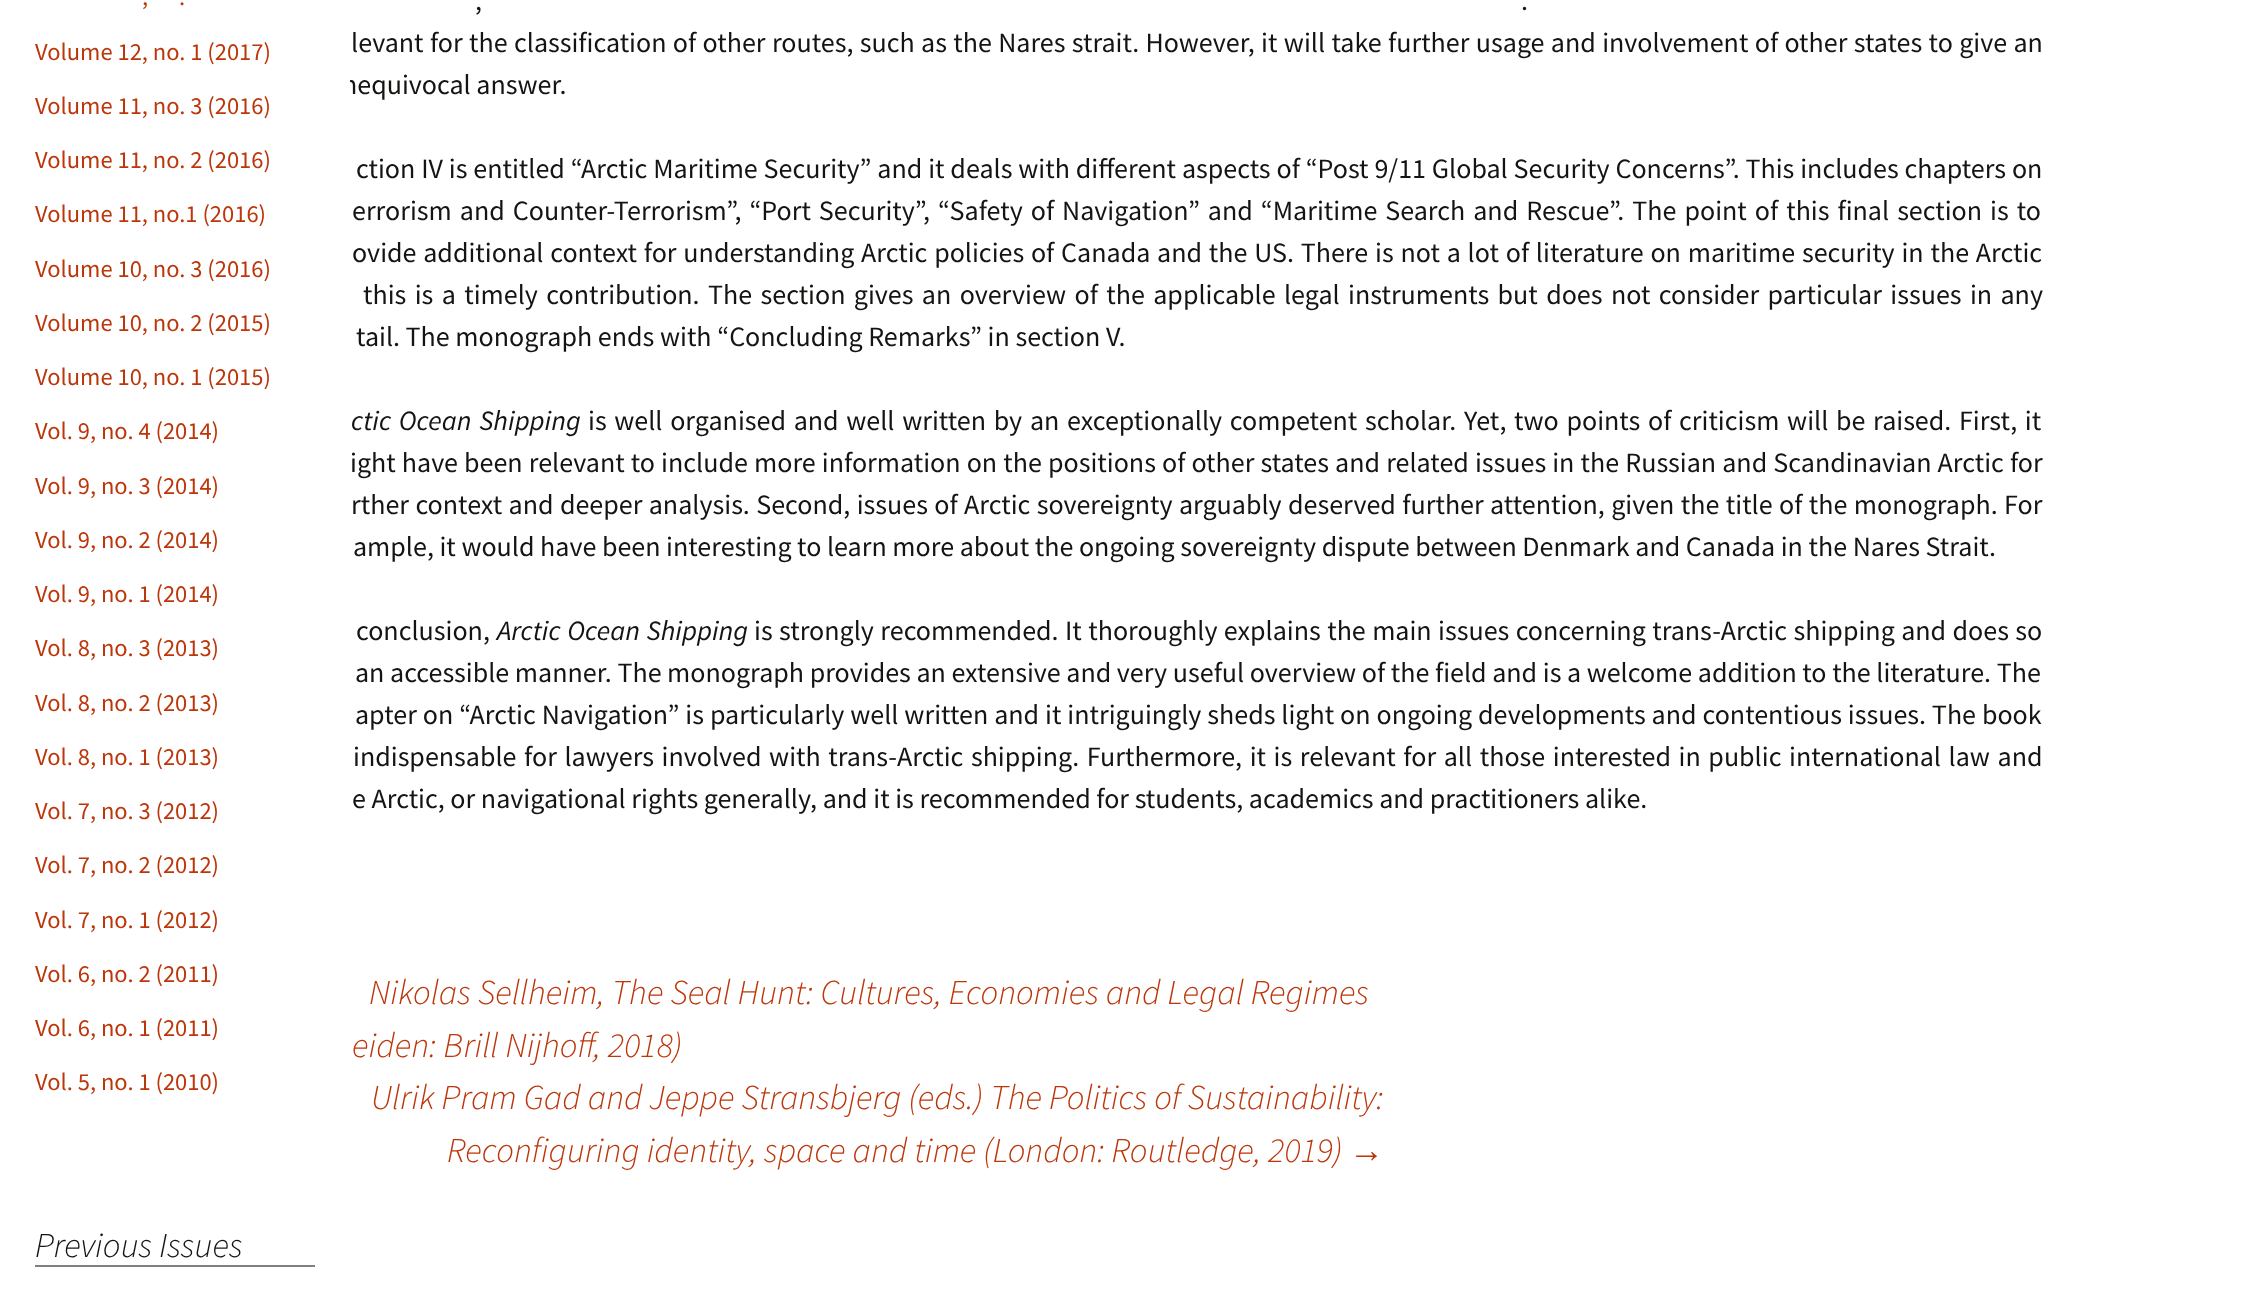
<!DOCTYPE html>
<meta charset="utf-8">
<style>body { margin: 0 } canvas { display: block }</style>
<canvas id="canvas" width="2264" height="1304"></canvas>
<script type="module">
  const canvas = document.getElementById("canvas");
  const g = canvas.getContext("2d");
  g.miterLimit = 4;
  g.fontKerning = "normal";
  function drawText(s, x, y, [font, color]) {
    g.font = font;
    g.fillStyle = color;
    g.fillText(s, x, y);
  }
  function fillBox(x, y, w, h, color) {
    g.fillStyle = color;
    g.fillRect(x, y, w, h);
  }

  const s1 = ["28px Source Sans Pro", "#141412"];
  const s2 = ["24.5px Source Sans Pro", "#BC360A"];
  const s3 = ["italic 300 35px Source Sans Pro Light", "#141412"];
  const s4 = ["italic 28px Source Sans Pro", "#141412"];
  const s5 = ["italic 300 35px Source Sans Pro Light", "#BC360A"];
  const s6 = ["italic 35px Liberation Sans", "#BC360A"];

  fillBox(0, 0, 2264, 1304, "#FFFFFF");
  drawText("nequivocal answer.", 342, 94, s1);
  fillBox(344, 80, 6, 14, "#FFFFFF");
  drawText(",", 142, 5, s2);
  drawText(".", 179, 5, s2);
  drawText("Volume 12, no. 1 (2017)", 35, 60, s2);
  drawText("Volume 11, no. 3 (2016)", 35, 114, s2);
  drawText("Volume 11, no. 2 (2016)", 35, 168, s2);
  drawText("Volume 11, no.1 (2016)", 35, 222, s2);
  drawText("Volume 10, no. 3 (2016)", 35, 277, s2);
  drawText("Volume 10, no. 2 (2015)", 35, 331, s2);
  drawText("Volume 10, no. 1 (2015)", 35, 385, s2);
  drawText("Vol. 9, no. 4 (2014)", 35, 439, s2);
  drawText("Vol. 9, no. 3 (2014)", 35, 494, s2);
  drawText("Vol. 9, no. 2 (2014)", 35, 548, s2);
  drawText("Vol. 9, no. 1 (2014)", 35, 602, s2);
  drawText("Vol. 8, no. 3 (2013)", 35, 656, s2);
  drawText("Vol. 8, no. 2 (2013)", 35, 711, s2);
  drawText("Vol. 8, no. 1 (2013)", 35, 765, s2);
  drawText("Vol. 7, no. 3 (2012)", 35, 819, s2);
  drawText("Vol. 7, no. 2 (2012)", 35, 873, s2);
  drawText("Vol. 7, no. 1 (2012)", 35, 928, s2);
  drawText("Vol. 6, no. 2 (2011)", 35, 982, s2);
  drawText("Vol. 6, no. 1 (2011)", 35, 1036, s2);
  drawText("Vol. 5, no. 1 (2010)", 35, 1090, s2);
  fillBox(35, 1265, 280, 2, "#808080");
  drawText("Previous Issues", 35, 1257, s3);
  g.wordSpacing = "1px";
  drawText(",", 475, 10, s1);
  drawText(".", 1521, 10, s1);
  g.wordSpacing = "0.75px";
  drawText("levant for the classification of other routes, such as the Nares strait. However, it will take further usage and involvement of other states to give an", 351, 52, s1);
  g.wordSpacing = "0.25px";
  drawText("ction IV is entitled “Arctic Maritime Security” and it deals with different aspects of “Post 9/11 Global Security Concerns”. This includes chapters on", 356, 178, s1);
  g.wordSpacing = "2.4px";
  drawText("errorism and Counter-Terrorism”, “Port Security”, “Safety of Navigation” and “Maritime Search and Rescue”. The point of this final section is to", 352, 220, s1);
  g.wordSpacing = "1.2px";
  drawText("ovide additional context for understanding Arctic policies of Canada and the US. There is not a lot of literature on maritime security in the Arctic", 352, 262, s1);
  g.wordSpacing = "2.8px";
  drawText("this is a timely contribution. The section gives an overview of the applicable legal instruments but does not consider particular issues in any", 363, 304, s1);
  g.wordSpacing = "0px";
  drawText("tail. The monograph ends with “Concluding Remarks” in section V.", 356, 346, s1);
  g.wordSpacing = "2.1px";
  drawText("ctic Ocean Shipping", 351, 430, s4);
  drawText("is well organised and well written by an exceptionally competent scholar. Yet, two points of criticism will be raised. First, it", 588, 430, s1);
  g.wordSpacing = "0.5px";
  drawText("ight have been relevant to include more information on the positions of other states and related issues in the Russian and Scandinavian Arctic for", 350, 472, s1);
  g.wordSpacing = "0.8px";
  drawText("rther context and deeper analysis. Second, issues of Arctic sovereignty arguably deserved further attention, given the title of the monograph. For", 351, 514, s1);
  g.wordSpacing = "0px";
  drawText("ample, it would have been interesting to learn more about the ongoing sovereignty dispute between Denmark and Canada in the Nares Strait.", 353, 556, s1);
  g.wordSpacing = "1px";
  drawText("conclusion,", 356, 640, s1);
  drawText("Arctic Ocean Shipping", 497, 640, s4);
  g.wordSpacing = "0.8px";
  drawText("is strongly recommended. It thoroughly explains the main issues concerning trans-Arctic shipping and does so", 754, 640, s1);
  g.wordSpacing = "0px";
  drawText("an accessible manner. The monograph provides an extensive and very useful overview of the field and is a welcome addition to the literature. The", 355, 682, s1);
  g.wordSpacing = "0.3px";
  drawText("apter on “Arctic Navigation” is particularly well written and it intriguingly sheds light on ongoing developments and contentious issues. The book", 355, 724, s1);
  g.wordSpacing = "2px";
  drawText("indispensable for lawyers involved with trans-Arctic shipping. Furthermore, it is relevant for all those interested in public international law and", 353, 766, s1);
  g.wordSpacing = "0px";
  drawText("e Arctic, or navigational rights generally, and it is recommended for students, academics and practitioners alike.", 352, 808, s1);
  drawText("Nikolas Sellheim, The Seal Hunt: Cultures, Economies and Legal Regimes", 369, 1004, s5);
  drawText("eiden: Brill Nijhoff, 2018)", 352, 1057, s5);
  drawText("Ulrik Pram Gad and Jeppe Stransbjerg (eds.) The Politics of Sustainability:", 371, 1109, s5);
  drawText("Reconfiguring identity, space and time (London: Routledge, 2019)", 447, 1162, s5);
  drawText("→", 1349, 1162, s6);
</script>
